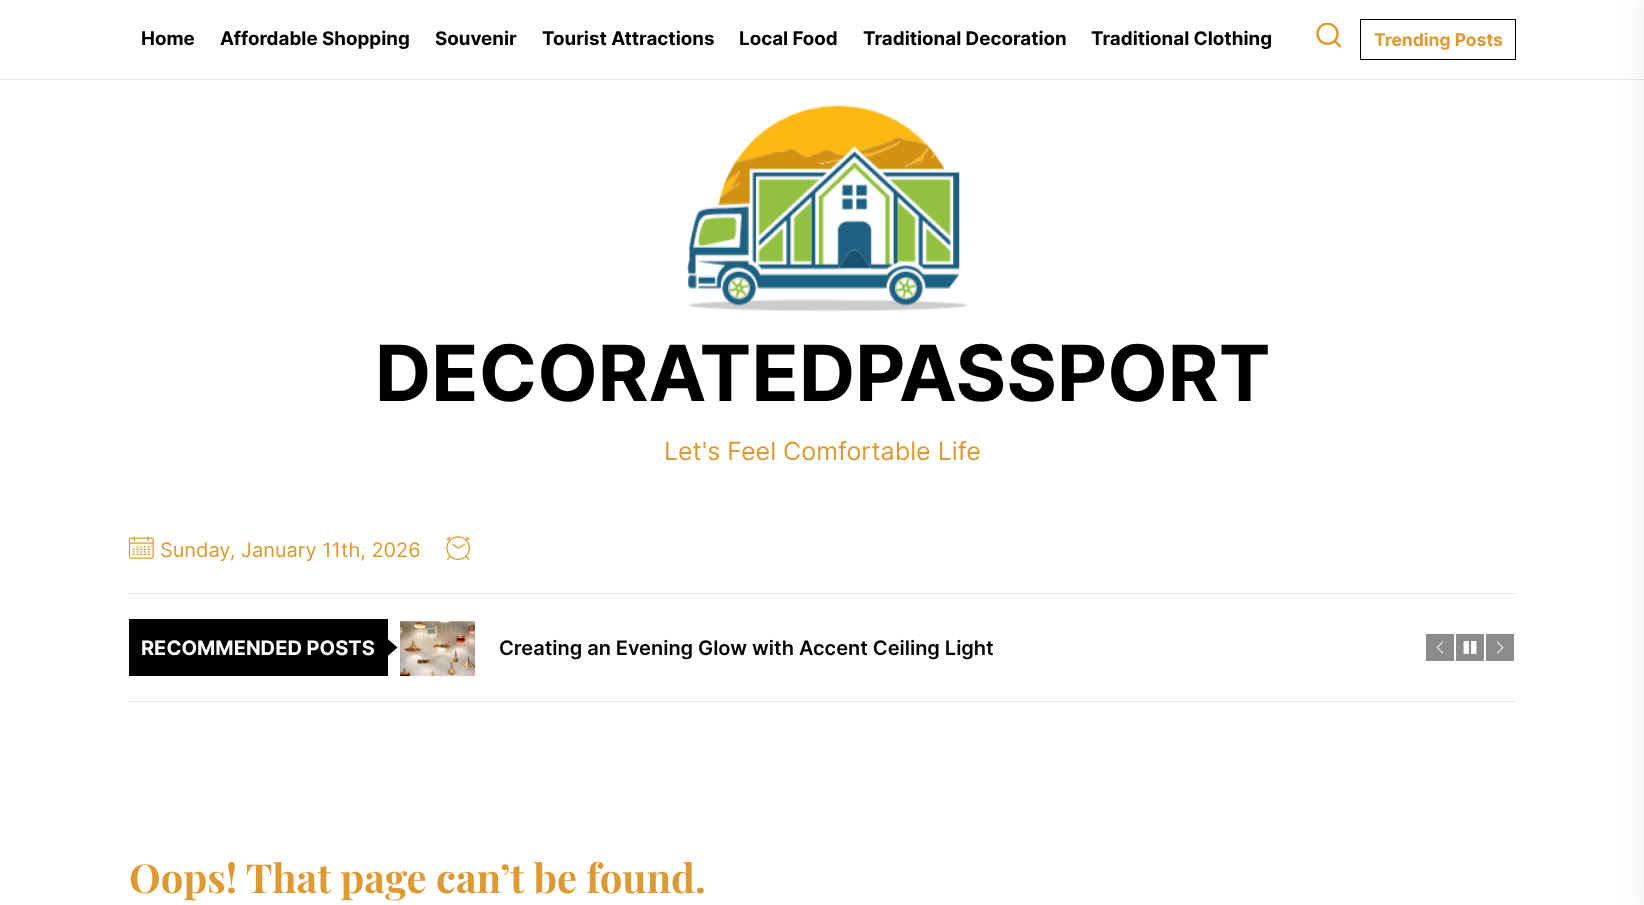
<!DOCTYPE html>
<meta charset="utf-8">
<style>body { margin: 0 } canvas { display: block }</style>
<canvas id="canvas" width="1644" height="905"></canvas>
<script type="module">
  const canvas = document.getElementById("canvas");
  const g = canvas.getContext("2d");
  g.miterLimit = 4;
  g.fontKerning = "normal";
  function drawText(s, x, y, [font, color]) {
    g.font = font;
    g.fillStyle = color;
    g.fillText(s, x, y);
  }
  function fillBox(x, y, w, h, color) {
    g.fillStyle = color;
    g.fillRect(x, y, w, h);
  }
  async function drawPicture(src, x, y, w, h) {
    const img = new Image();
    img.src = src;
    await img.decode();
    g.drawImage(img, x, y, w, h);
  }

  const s1 = ["bold 18.75px Inter", "#000000"];
  const s2 = ["bold 17.5px Inter", "#DD9933"];
  const s3 = ["bold 77.5px Inter", "#000000"];
  const s4 = ["25px Inter", "#DD9933"];
  const s5 = ["20px Inter", "#DD9933"];
  const s6 = ["bold 20px Inter", "#FFFFFF"];
  const s7 = ["600 20px Inter", "#000000"];
  const s8 = ["bold 40px Playfair Display", "#DD9933"];

  fillBox(0, 0, 1644, 905, "#FFFFFF");
  fillBox(0, 79, 1644, 1, "#E6E6E6");
  drawText("Home", 141, 45, s1);
  drawText("Affordable Shopping", 220, 45, s1);
  drawText("Souvenir", 435, 45, s1);
  drawText("Tourist Attractions", 542, 45, s1);
  drawText("Local Food", 739, 45, s1);
  drawText("Traditional Decoration", 863, 45, s1);
  drawText("Traditional Clothing", 1091, 45, s1);
  await drawPicture("pic1.png", 1316, 23, 25, 25);
  g.strokeStyle = "#000000";
  g.strokeRect(1360.5, 19.5, 155, 40);
  drawText("Trending Posts", 1374, 46, s2);
  await drawPicture("pic2.png", 687, 105, 280, 207);
  drawText("DECORATEDPASSPORT", 375, 401, s3);
  drawText("Let's Feel Comfortable Life", 664, 460, s4);
  await drawPicture("pic3.png", 129, 536, 25, 23);
  drawText("Sunday, January 11th, 2026", 160, 557, s5);
  await drawPicture("pic4.png", 446, 536, 24, 24);
  fillBox(129, 593, 1387, 1, "#E6E6E6");
  fillBox(129, 619, 259, 57, "#000000");
  drawText("RECOMMENDED POSTS", 141, 655, s6);
  g.fillStyle = "#000000";
  g.beginPath();
  g.moveTo(386, 657.5);
  g.lineTo(386, 637.5);
  g.lineTo(397.5, 647.5);
  g.closePath();
  g.fill();
  await drawPicture("pic5.png", 400, 618, 5, 1);
  await drawPicture("pic6.png", 400, 621, 75, 56);
  drawText("Creating an Evening Glow with Accent Ceiling Light", 499, 655, s7);
  fillBox(1426, 634, 28, 27, "#8B8B8B");
  await drawPicture("pic7.png", 1436, 641, 8, 13);
  fillBox(1456, 634, 28, 27, "#8B8B8B");
  await drawPicture("pic8.png", 1463, 641, 14, 13);
  fillBox(1486, 634, 28, 27, "#8B8B8B");
  await drawPicture("pic9.png", 1496, 641, 8, 13);
  fillBox(129, 701, 1387, 1, "#E6E6E6");
  g.fillStyle = "rgba(0, 0, 0, 0.1)";
  g.filter = "blur(12.5px)";
  g.beginPath();
  g.rect(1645, 0, 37, 905);
  g.fill();
  g.filter = "none";
  drawText("Oops! That page can’t be found.", 129, 893, s8);
</script>
